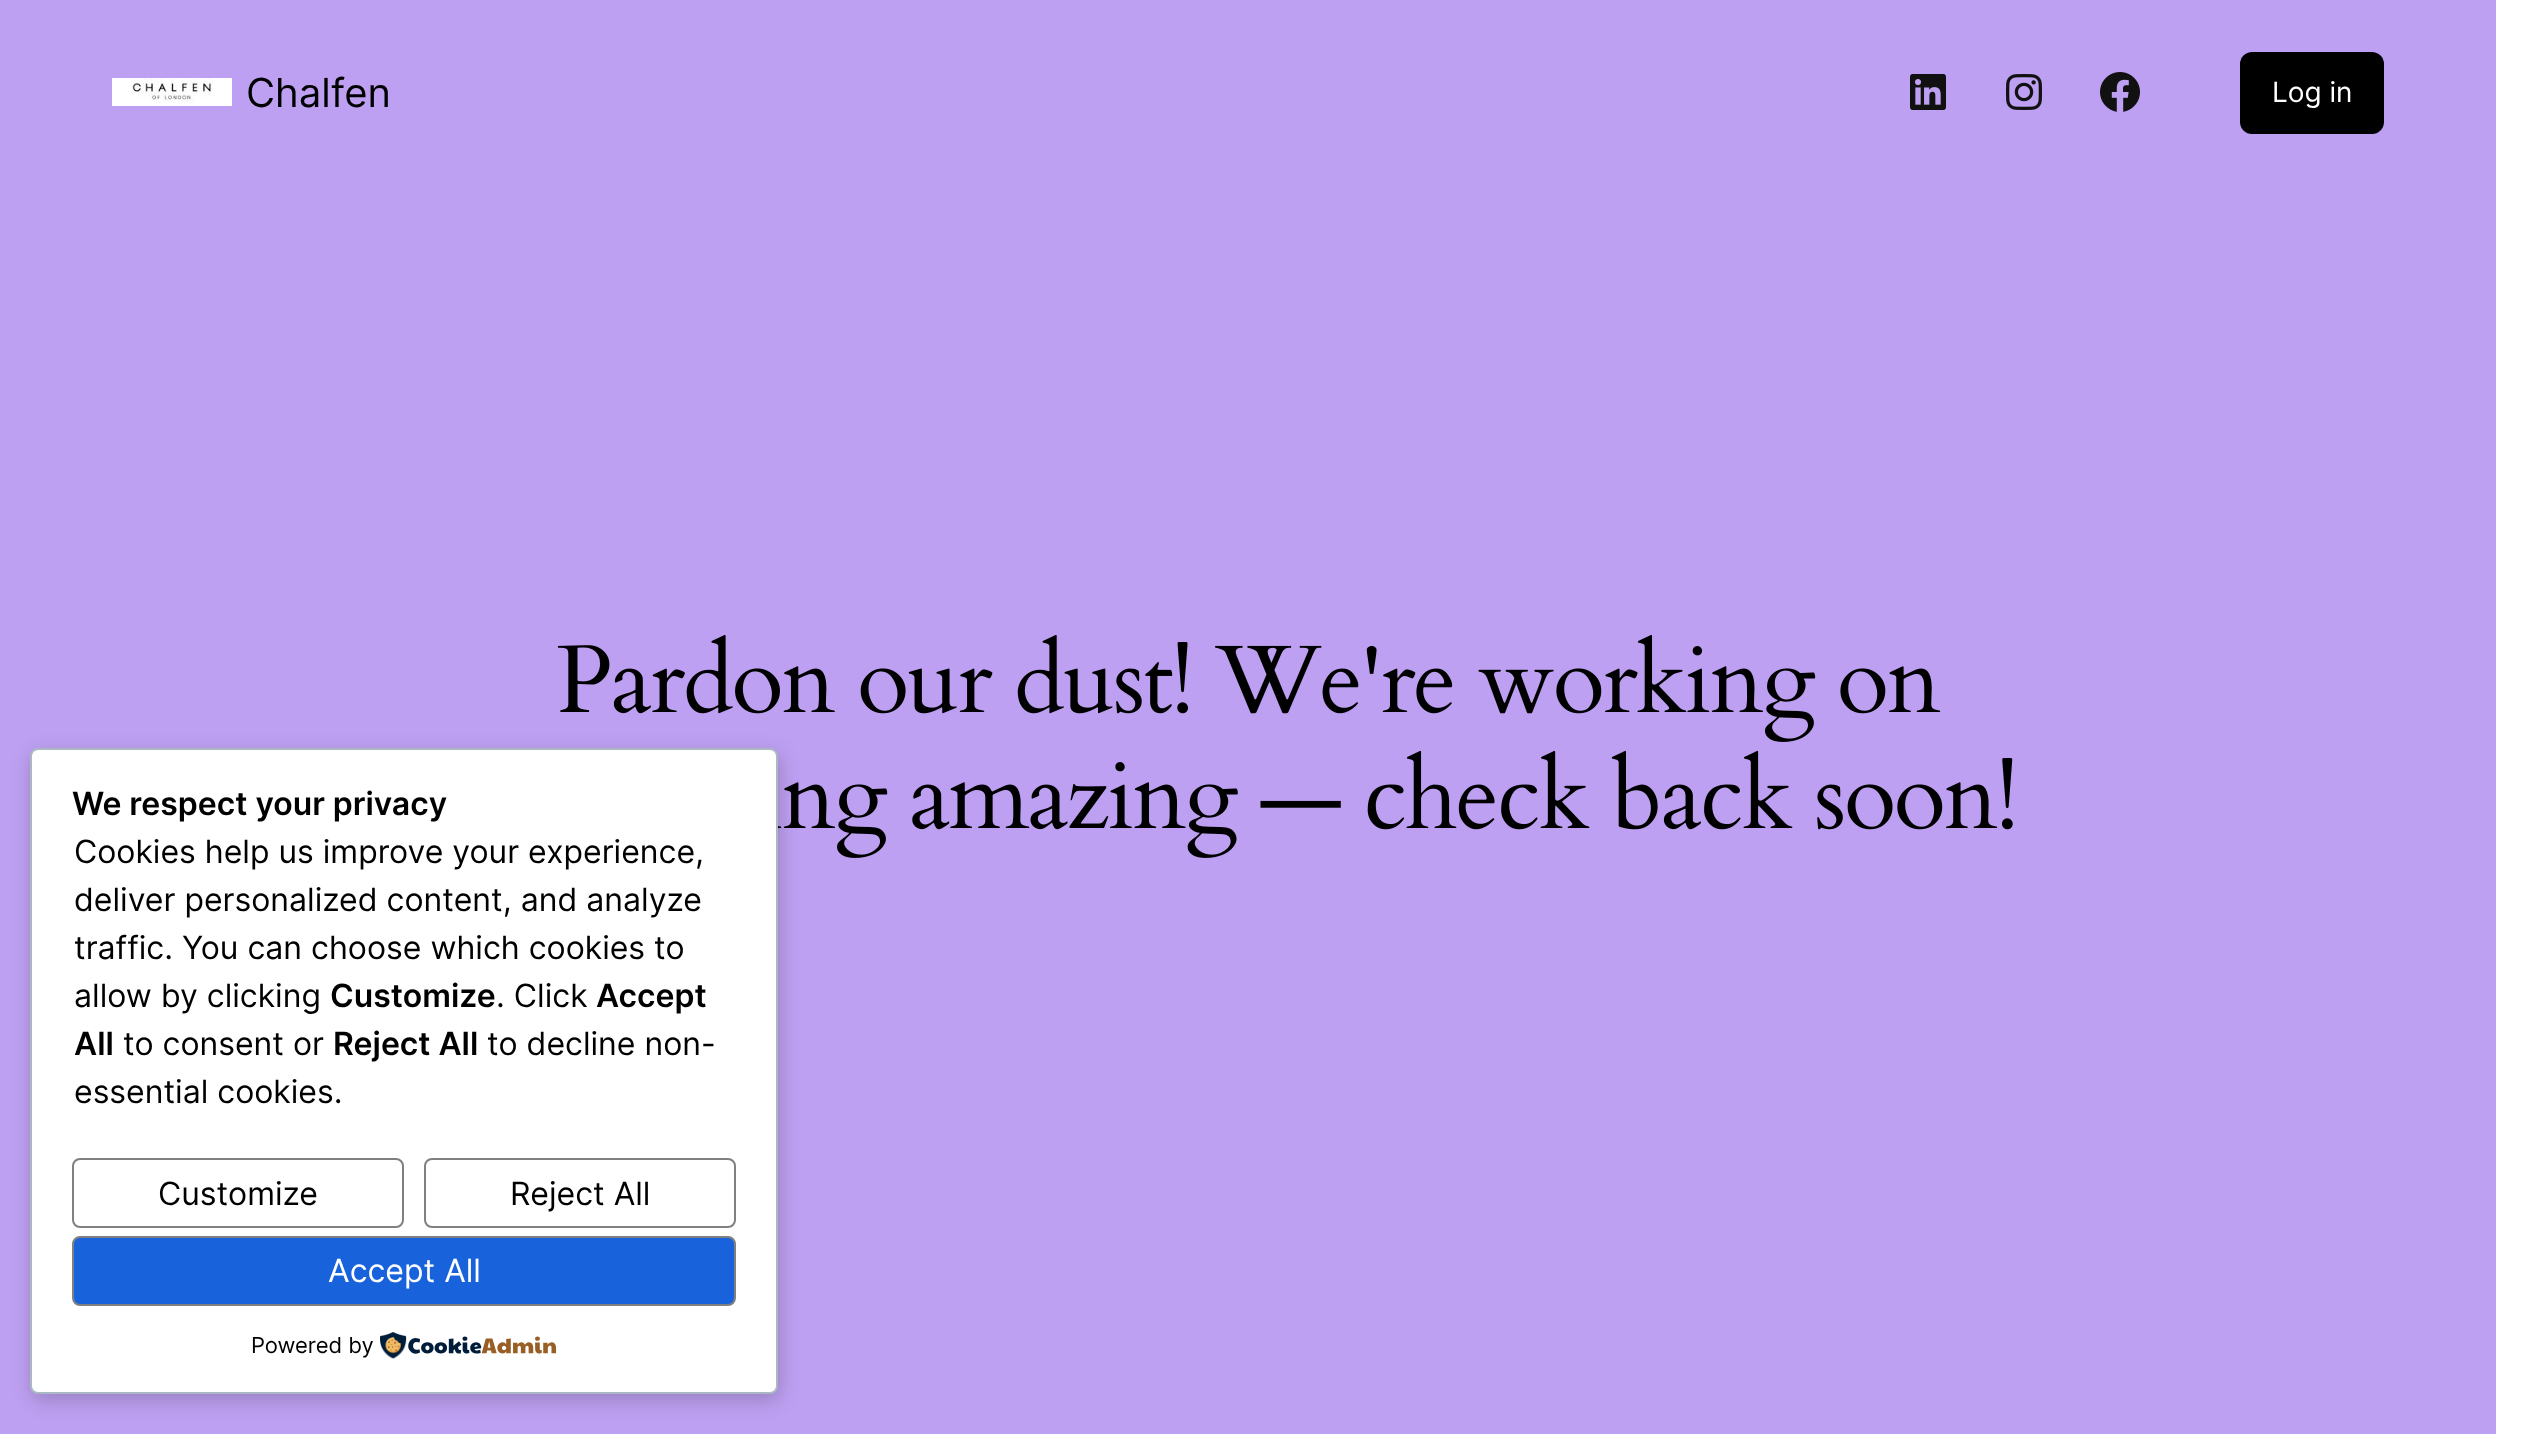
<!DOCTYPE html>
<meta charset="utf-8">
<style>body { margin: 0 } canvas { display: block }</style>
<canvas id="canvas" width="2525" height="1434"></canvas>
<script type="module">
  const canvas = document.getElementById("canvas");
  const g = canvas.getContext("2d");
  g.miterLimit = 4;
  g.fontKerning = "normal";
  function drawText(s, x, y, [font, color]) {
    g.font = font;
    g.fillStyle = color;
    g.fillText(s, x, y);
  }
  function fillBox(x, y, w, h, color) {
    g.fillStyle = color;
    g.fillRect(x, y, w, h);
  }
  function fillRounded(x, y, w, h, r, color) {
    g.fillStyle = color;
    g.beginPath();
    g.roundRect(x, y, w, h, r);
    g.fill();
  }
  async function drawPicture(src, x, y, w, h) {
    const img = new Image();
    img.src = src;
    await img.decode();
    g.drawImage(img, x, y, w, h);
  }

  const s1 = ["40px Inter", "#000000"];
  const s2 = ["28px Inter", "#FFFFFF"];
  const s3 = ["600 32px Inter", "#000000"];
  const s4 = ["32px Inter", "#000000"];
  const s5 = ["600 32px 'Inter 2'", "#000000"];
  const s6 = ["32px Inter", "#FFFFFF"];
  const s7 = ["22px Inter", "#000000"];

  fillBox(0, 0, 2525, 1434, "#FFFFFF");
  fillBox(0, 0, 2496, 1434, "#BEA0F2");
  await drawPicture("pic1.png", 112, 78, 120, 28);
  drawText("Chalfen", 246, 107, s1);
  await drawPicture("pic2.png", 1910, 74, 36, 36);
  await drawPicture("pic3.png", 2006, 74, 36, 36);
  await drawPicture("pic4.png", 2100, 72, 40, 40);
  fillRounded(2240, 52, 144, 82, 12, "#000000");
  drawText("Log in", 2272, 102, s2);
  await drawPicture("pic5.png", 557, 634, 1384, 108);
  await drawPicture("pic6.png", 778, 750, 1235, 108);
  g.fillStyle = "rgba(0, 0, 0, 0.2)";
  g.filter = "blur(10px)";
  g.beginPath();
  g.roundRect(32, 754, 748, 646, 8);
  g.fill();
  g.filter = "none";
  g.fillStyle = "#FFFFFF";
  g.beginPath();
  g.roundRect(31, 749, 746, 644, 7);
  g.fill();
  g.strokeStyle = "#ABB8C3";
  g.lineWidth = 2;
  g.stroke();
  drawText("We respect your privacy", 72, 815, s3);
  drawText("Cookies help us improve your experience,", 74, 863, s4);
  drawText("deliver personalized content, and analyze", 74, 911, s4);
  drawText("traffic. You can choose which cookies to", 74, 959, s4);
  drawText("allow by clicking", 74, 1007, s4);
  drawText("Customize", 330, 1007, s5);
  drawText(". Click", 496, 1007, s4);
  drawText("Accept", 596, 1007, s5);
  drawText("All", 74, 1055, s5);
  drawText("to consent or", 123, 1055, s4);
  drawText("Reject All", 333, 1055, s5);
  drawText("to decline non-", 487, 1055, s4);
  drawText("essential cookies.", 74, 1103, s4);
  g.beginPath();
  g.roundRect(73, 1159, 330, 68, 7);
  g.strokeStyle = "#808080";
  g.stroke();
  drawText("Customize", 158, 1205, s4);
  g.beginPath();
  g.roundRect(425, 1159, 310, 68, 7);
  g.stroke();
  drawText("Reject All", 510, 1205, s4);
  g.fillStyle = "#1863DC";
  g.beginPath();
  g.roundRect(73, 1237, 662, 68, 7);
  g.fill();
  g.stroke();
  drawText("Accept All", 328, 1282, s6);
  drawText("Powered by", 251, 1353, s7);
  await drawPicture("pic7.png", 380, 1332, 177, 27);
</script>
